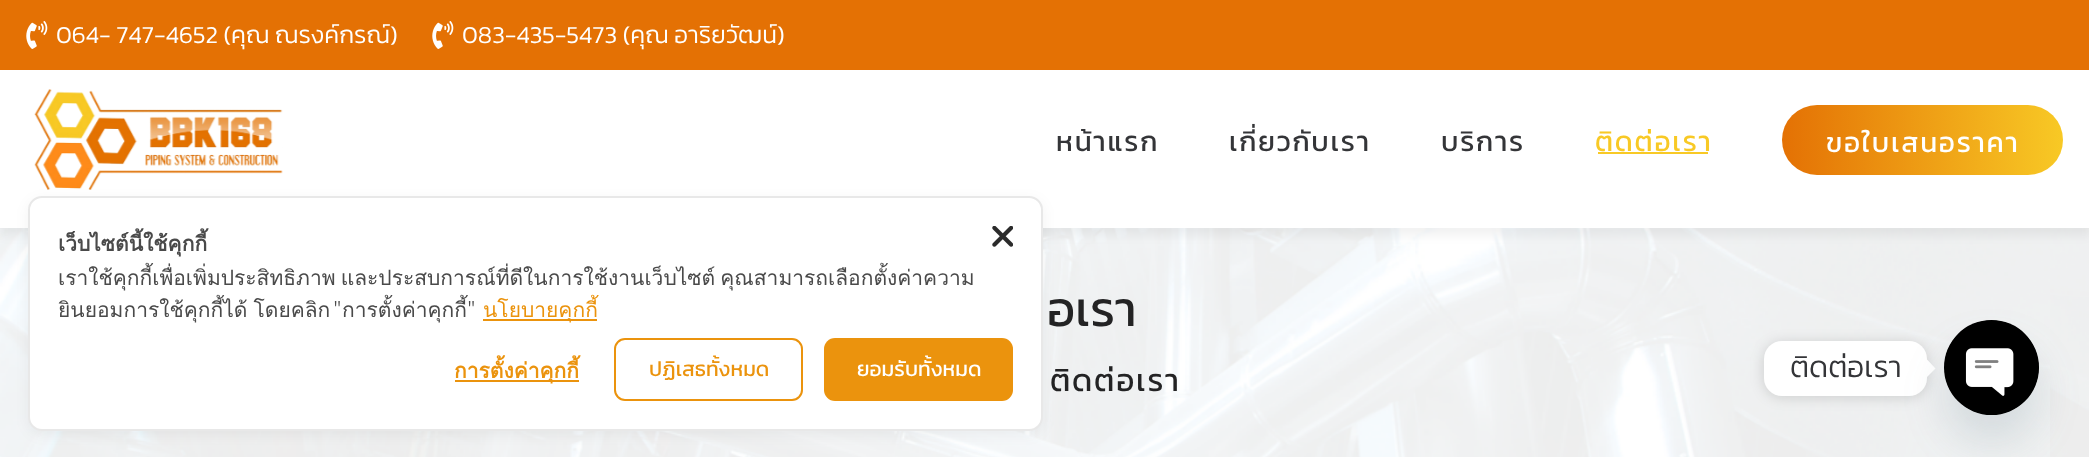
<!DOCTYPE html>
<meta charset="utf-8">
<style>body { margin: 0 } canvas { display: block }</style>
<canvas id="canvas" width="2089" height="457"></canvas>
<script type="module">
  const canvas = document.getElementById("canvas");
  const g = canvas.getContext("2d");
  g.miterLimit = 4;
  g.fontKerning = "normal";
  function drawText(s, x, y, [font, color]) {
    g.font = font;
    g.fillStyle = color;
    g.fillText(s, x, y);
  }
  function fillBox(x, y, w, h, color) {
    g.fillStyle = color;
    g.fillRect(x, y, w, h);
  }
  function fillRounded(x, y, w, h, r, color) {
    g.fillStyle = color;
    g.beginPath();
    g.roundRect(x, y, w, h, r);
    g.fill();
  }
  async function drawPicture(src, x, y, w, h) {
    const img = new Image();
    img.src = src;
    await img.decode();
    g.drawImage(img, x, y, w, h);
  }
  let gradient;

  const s1 = ["300 24.5px Kanit", "#FFFFFF"];
  const s2 = ["28px Kanit", "#343538"];
  const s3 = ["28px Kanit", "#F8C925"];
  const s4 = ["28px Kanit", "#FFFFFF"];
  const s5 = ["49px Kanit", "#232324"];
  const s6 = ["31.5px Kanit", "#232324"];
  const s7 = ["bold 21px Loma", "#4A4A4A"];
  const s8 = ["21px Loma", "#4A4A4A"];
  const s9 = ["300 21px Noto Sans JP", "#4A4A4A"];
  const s10 = ["21px Loma", "#EB930D"];
  const s11 = ["bold 21px Loma", "#EB930D"];
  const s12 = ["21px Kanit", "#EB930D"];
  const s13 = ["21px Kanit", "#FFFFFF"];
  const s14 = ["300 30px Kanit", "#343538"];

  fillBox(0, 0, 2089, 457, "#E47104");
  await drawPicture("pic1.png", 26, 21, 22, 28);
  drawText("064- 747-4652 (คุณ ณรงค์กรณ์)", 56, 43, s1);
  await drawPicture("pic1.png", 432, 21, 22, 28);
  drawText("083-435-5473 (คุณ อาริยวัฒน์)", 462, 43, s1);
  await drawPicture("pic3.png", 2050, 228, 39, 229);
  await drawPicture("pic4.png", 0, 228, 2050, 229);
  g.fillStyle = "rgba(0, 0, 0, 0.05)";
  g.filter = "blur(5px)";
  g.beginPath();
  g.rect(0, 79, 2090, 157);
  g.fill();
  g.filter = "none";
  fillBox(0, 70, 2089, 158, "#FFFFFF");
  await drawPicture("pic2.png", 34, 89, 249, 101);
  g.letterSpacing = "1.75px";
  drawText("หน้าแรก", 1056, 151, s2);
  drawText("เกี่ยวกับเรา", 1229, 151, s2);
  drawText("บริการ", 1441, 151, s2);
  drawText("ติดต่อเรา", 1595, 151, s3);
  fillBox(1598, 152, 110, 2, "#F8C925");
  gradient = g.createLinearGradient(1782, 140, 2063, 140);
  gradient.addColorStop(0, "#E47104");
  gradient.addColorStop(1, "#F8C925");
  g.fillStyle = gradient;
  g.beginPath();
  g.roundRect(1782, 105, 281, 70, 35);
  g.fill();
  drawText("ขอใบเสนอราคา", 1826, 152, s4);
  g.letterSpacing = "0px";
  drawText("อเรา", 1047, 326, s5);
  g.letterSpacing = "1.75px";
  drawText("ติดต่อเรา", 1050, 391, s6);
  g.fillStyle = "rgba(0, 0, 0, 0.05)";
  g.filter = "blur(7px)";
  g.beginPath();
  g.roundRect(28, 200, 1015, 234, 14);
  g.fill();
  g.filter = "none";
  g.fillStyle = "#FFFFFF";
  g.beginPath();
  g.roundRect(29, 197, 1013, 233, 13);
  g.fill();
  g.strokeStyle = "#E8E8E8";
  g.lineWidth = 2;
  g.stroke();
  g.letterSpacing = "0px";
  drawText("เว็บไซต์นี้ใช้คุกกี้", 58, 251, s7);
  g.wordSpacing = "-2px";
  drawText("เราใช้คุกกี้เพื่อเพิ่มประสิทธิภาพ และประสบการณ์ที่ดีในการใช้งานเว็บไซต์ คุณสามารถเลือกตั้งค่าความ", 58, 285, s8);
  g.wordSpacing = "-1px";
  drawText("ยินยอมการใช้คุกกี้ได้ โดยคลิก", 58, 317, s8);
  g.wordSpacing = "0px";
  drawText("\"", 333, 317, s9);
  drawText("การตั้งค่าคุกกี้", 342, 317, s8);
  drawText("\"", 467, 317, s9);
  fillBox(483, 319, 114, 2, "#EB930D");
  drawText("นโยบายคุกกี้", 483, 317, s10);
  fillBox(455, 380, 124, 2, "#EB930D");
  drawText("การตั้งค่าคุกกี้", 454, 378, s11);
  g.beginPath();
  g.roundRect(615, 339, 187, 61, 10);
  g.strokeStyle = "#EB930D";
  g.stroke();
  drawText("ปฏิเสธทั้งหมด", 649, 376, s12);
  fillRounded(824, 338, 189, 63, 11, "#EB930D");
  drawText("ยอมรับทั้งหมด", 857, 376, s13);
  await drawPicture("pic5.png", 992, 226, 21, 21);
  g.fillStyle = "rgba(0, 0, 0, 0.15)";
  g.filter = "blur(7px)";
  g.beginPath();
  g.roundRect(1764, 343, 163, 54, 18);
  g.fill();
  g.filter = "none";
  fillRounded(1764, 341, 163, 55, 18, "#FFFFFF");
  drawText("ติดต่อเรา", 1790, 377, s14);
  g.fillStyle = "#FFFFFF";
  g.beginPath();
  g.moveTo(1927, 377);
  g.lineTo(1927, 359.5);
  g.lineTo(1935.5, 368.5);
  g.closePath();
  g.fill();
  g.fillStyle = "rgba(73, 104, 126, 0.16)";
  g.filter = "blur(21px)";
  g.beginPath();
  g.roundRect(1944, 348, 95, 95, 47.5);
  g.fill();
  g.filter = "none";
  g.fillStyle = "#000000";
  g.beginPath();
  g.arc(1991.5, 367.5, 47.5, 0, Math.PI * 2);
  g.fill();
  await drawPicture("pic6.png", 1945, 320, 94, 95);
</script>
